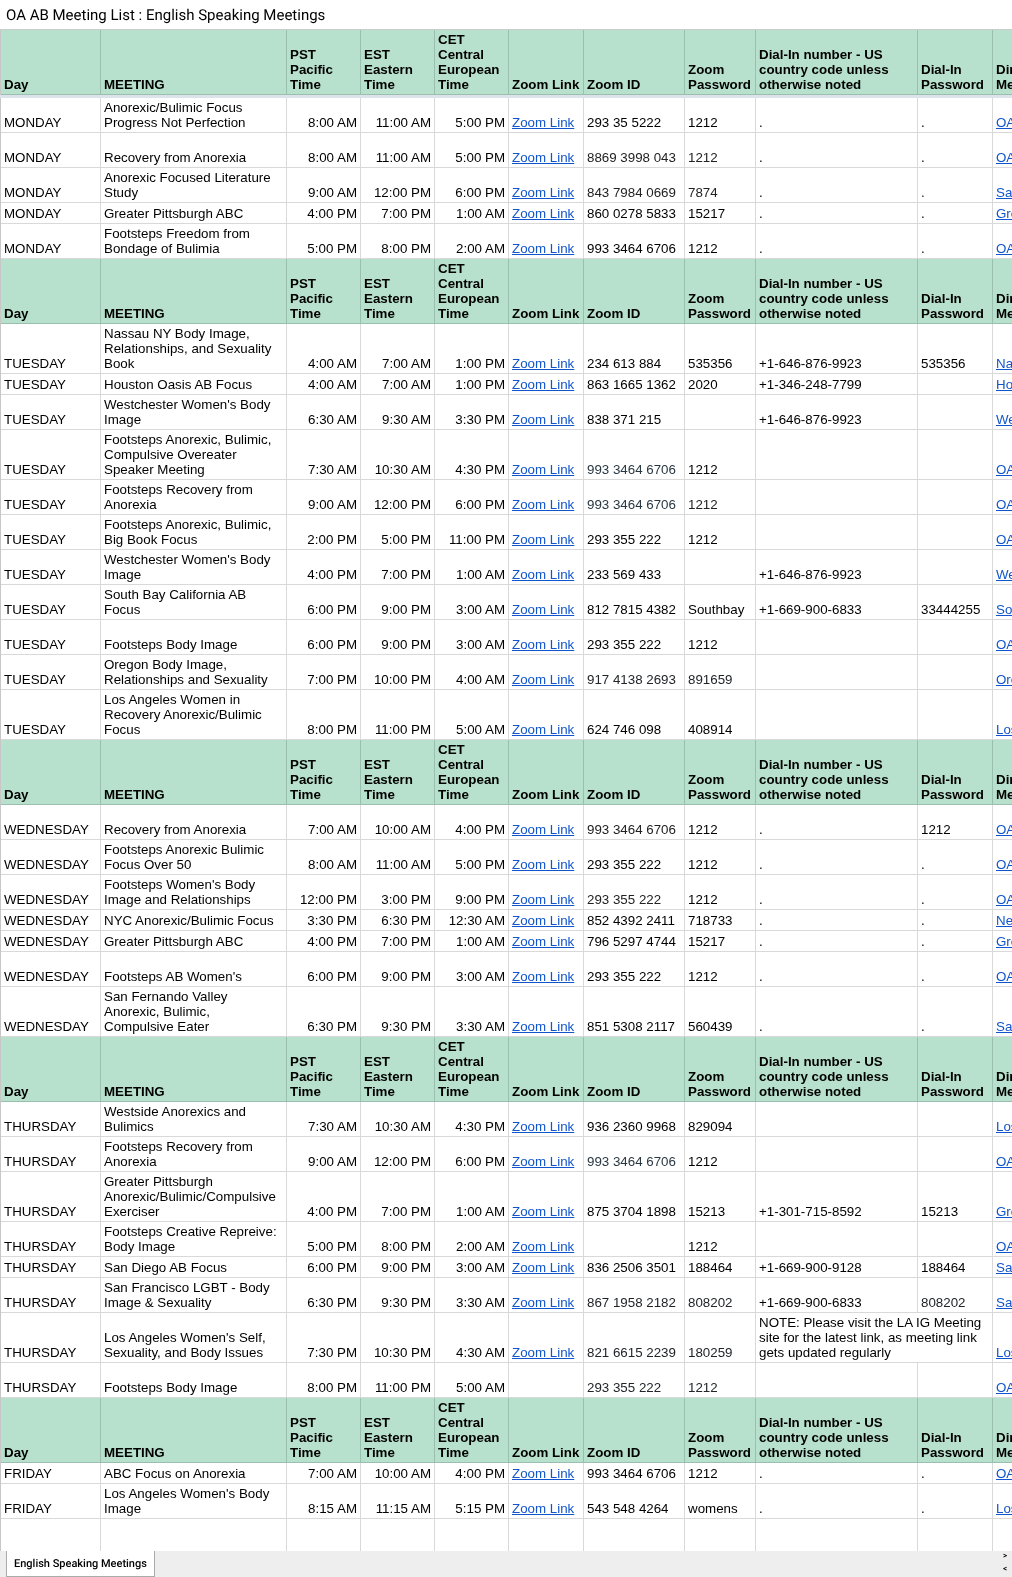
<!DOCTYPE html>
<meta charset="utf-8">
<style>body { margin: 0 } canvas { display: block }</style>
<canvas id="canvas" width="1012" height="1577"></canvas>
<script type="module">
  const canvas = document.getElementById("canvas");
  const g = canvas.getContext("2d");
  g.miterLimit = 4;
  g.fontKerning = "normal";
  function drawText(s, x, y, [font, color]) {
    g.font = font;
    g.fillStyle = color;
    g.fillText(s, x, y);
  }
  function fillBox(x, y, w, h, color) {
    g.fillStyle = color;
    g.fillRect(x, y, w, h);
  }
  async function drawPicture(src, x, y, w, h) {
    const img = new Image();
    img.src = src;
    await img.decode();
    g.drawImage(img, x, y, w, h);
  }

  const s1 = ["15px Roboto", "#000000"];
  const s2 = ["500 11px Roboto", "#000000"];
  const s3 = ["bold 8px Roboto", "#000000"];

  fillBox(0, 0, 1012, 1577, "#FFFFFF");
  fillBox(0, 29, 1012, 1, "#CCCCCC");
  drawText("OA AB Meeting List : English Speaking Meetings", 6, 20, s1);
  await drawPicture("pic1.png", 0, 30, 1012, 1521);
  fillBox(0, 1551, 1012, 26, "#EEEEEE");
  fillBox(7, 1551, 147, 25, "#FFFFFF");
  fillBox(154, 1551, 1, 26, "#ABABAB");
  fillBox(6, 1576, 149, 1, "#ABABAB");
  fillBox(6, 1551, 1, 26, "#ABABAB");
  drawText("English Speaking Meetings", 14, 1567, s2);
  drawText(">", 1003, 1558, s3);
  drawText("<", 1003, 1571, s3);
</script>
